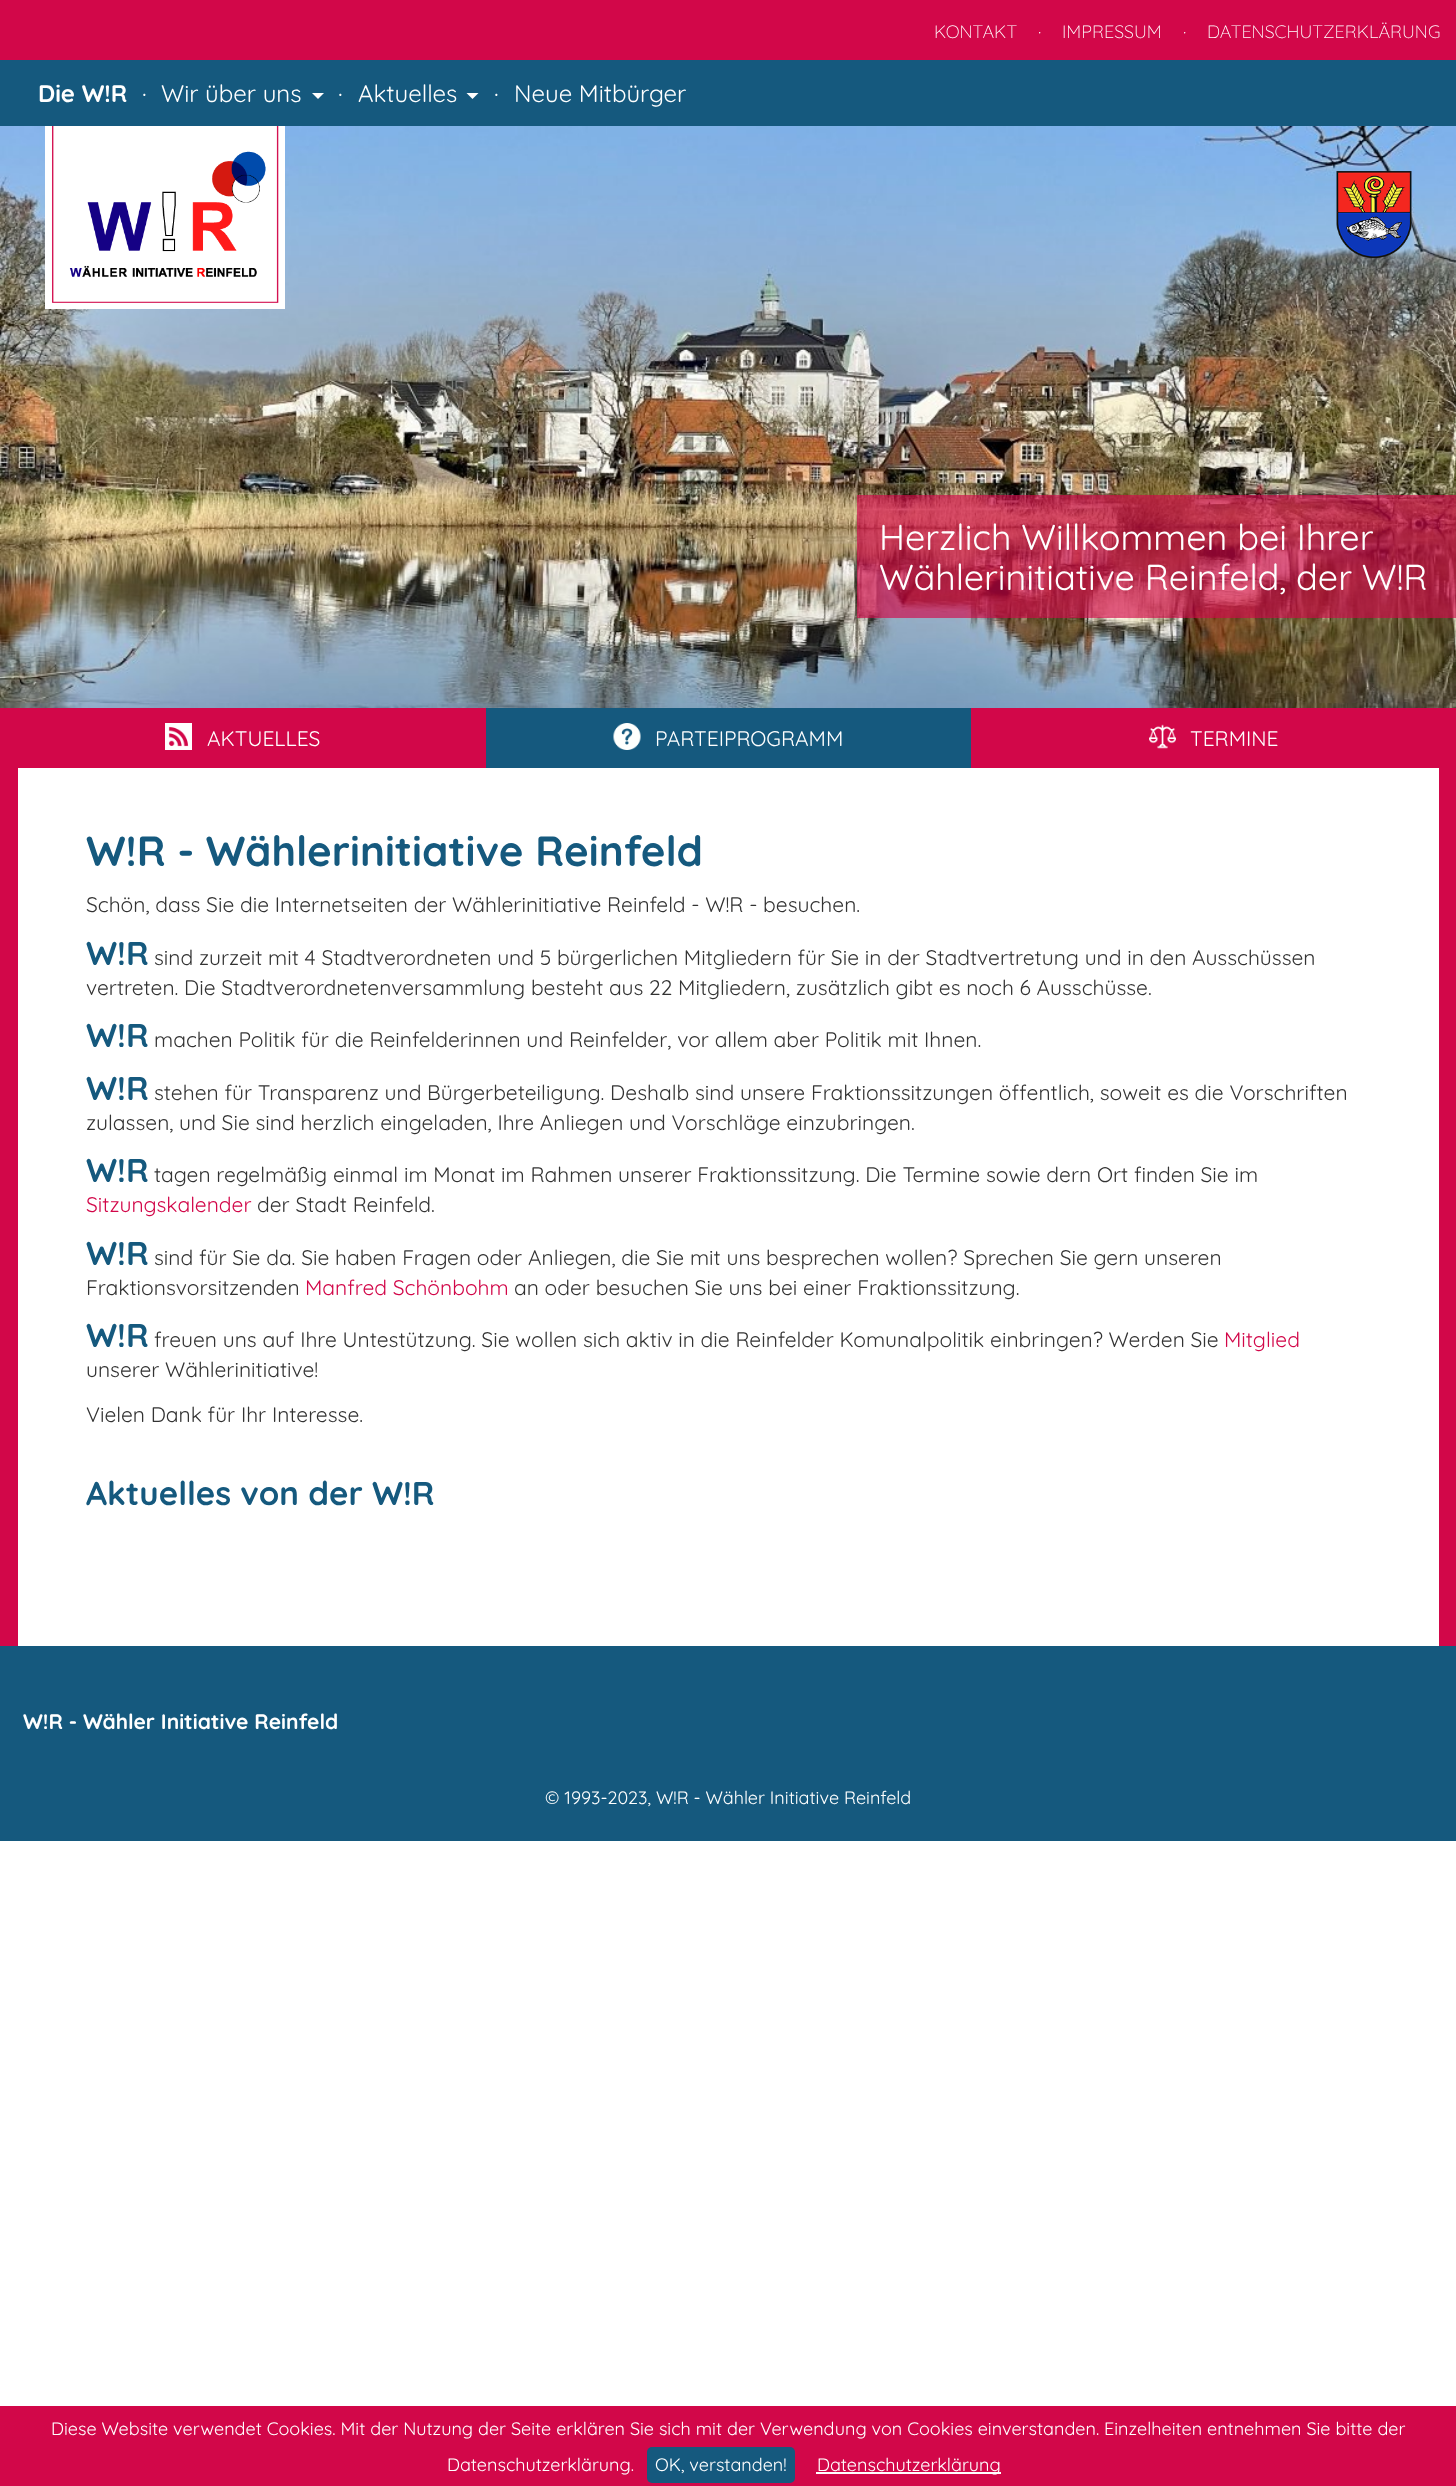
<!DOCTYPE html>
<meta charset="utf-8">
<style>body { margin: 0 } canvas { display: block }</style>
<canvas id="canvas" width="1456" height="2486"></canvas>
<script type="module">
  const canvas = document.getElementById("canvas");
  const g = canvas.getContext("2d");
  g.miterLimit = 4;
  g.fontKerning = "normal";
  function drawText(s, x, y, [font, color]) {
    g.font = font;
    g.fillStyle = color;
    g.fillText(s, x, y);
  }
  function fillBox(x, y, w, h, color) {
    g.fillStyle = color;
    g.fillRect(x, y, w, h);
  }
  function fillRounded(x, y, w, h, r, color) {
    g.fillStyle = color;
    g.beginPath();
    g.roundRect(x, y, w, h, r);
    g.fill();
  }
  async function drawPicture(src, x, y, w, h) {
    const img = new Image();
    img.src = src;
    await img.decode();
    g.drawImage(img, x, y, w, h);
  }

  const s1 = ["300 18px Quicksand", "#FFFFFF"];
  const s2 = ["bold 24px Quicksand", "#FFFFFF"];
  const s3 = ["24px Quicksand", "#FFFFFF"];
  const s4 = ["36px Quicksand", "#FFFFFF"];
  const s5 = ["21px Quicksand", "#FFFFFF"];
  const s6 = ["bold 42px Quicksand", "#15597E"];
  const s7 = ["21px Quicksand", "#333333"];
  const s8 = ["bold 33px Quicksand", "#15597E"];
  const s9 = ["21px Quicksand", "#D20749"];
  const s10 = ["bold 21px Quicksand", "#FFFFFF"];
  const s11 = ["18px Quicksand", "#FFFFFF"];

  fillBox(0, 0, 1456, 2486, "#FFFFFF");
  fillBox(0, 0, 1456, 60, "#D20749");
  drawText("KONTAKT", 934, 38, s1);
  drawText("·", 1038, 38, s1);
  drawText("IMPRESSUM", 1062, 38, s1);
  drawText("·", 1183, 38, s1);
  drawText("DATENSCHUTZERKLÄRUNG", 1207, 38, s1);
  fillBox(0, 60, 1456, 66, "#15597E");
  drawText("Die W!R", 38, 102, s2);
  drawText("·", 142, 102, s3);
  drawText("Wir über uns", 161, 102, s3);
  g.beginPath();
  g.moveTo(312, 93);
  g.lineTo(324, 93);
  g.lineTo(318, 99);
  g.closePath();
  g.fill();
  drawText("·", 338, 102, s3);
  drawText("Aktuelles", 358, 102, s3);
  g.beginPath();
  g.moveTo(466.5, 93);
  g.lineTo(478.5, 93);
  g.lineTo(472.5, 99);
  g.closePath();
  g.fill();
  drawText("·", 494, 102, s3);
  drawText("Neue Mitbürger", 514, 102, s3);
  await drawPicture("pic1.png", 0, 126, 1456, 582);
  fillBox(45, 126, 240, 183, "#FFFFFF");
  await drawPicture("pic2.png", 52, 126, 227, 177);
  await drawPicture("pic3.png", 1336, 171, 76, 87);
  fillBox(857, 495, 599, 123, "rgba(210, 7, 73, 0.65)");
  drawText("Herzlich Willkommen bei Ihrer", 879, 550, s4);
  drawText("Wählerinitiative Reinfeld, der W!R", 879, 590, s4);
  fillBox(486, 708, 485, 60, "#15597E");
  fillBox(0, 708, 486, 60, "#D20749");
  await drawPicture("pic4.png", 165, 723, 27, 27);
  drawText("AKTUELLES", 207, 746, s5);
  await drawPicture("pic5.png", 613, 723, 28, 27);
  drawText("PARTEIPROGRAMM", 655, 746, s5);
  fillBox(971, 708, 485, 60, "#D20749");
  await drawPicture("pic6.png", 1149, 724, 27, 25);
  drawText("TERMINE", 1190, 746, s5);
  fillBox(1439, 768, 17, 878, "#D20749");
  fillBox(0, 768, 18, 878, "#D20749");
  drawText("W!R - Wählerinitiative Reinfeld", 86, 866, s6);
  drawText("Schön, dass Sie die Internetseiten der Wählerinitiative Reinfeld - W!R - besuchen.", 86, 912, s7);
  drawText("W!R", 86, 965, s8);
  drawText("sind zurzeit mit 4 Stadtverordneten und 5 bürgerlichen Mitgliedern für Sie in der Stadtvertretung und in den Ausschüssen", 154, 965, s7);
  drawText("vertreten. Die Stadtverordnetenversammlung besteht aus 22 Mitgliedern, zusätzlich gibt es noch 6 Ausschüsse.", 86, 995, s7);
  drawText("W!R", 86, 1047, s8);
  drawText("machen Politik für die Reinfelderinnen und Reinfelder, vor allem aber Politik mit Ihnen.", 154, 1047, s7);
  drawText("W!R", 86, 1100, s8);
  drawText("stehen für Transparenz und Bürgerbeteiligung. Deshalb sind unsere Fraktionssitzungen öffentlich, soweit es die Vorschriften", 154, 1100, s7);
  drawText("zulassen, und Sie sind herzlich eingeladen, Ihre Anliegen und Vorschläge einzubringen.", 86, 1130, s7);
  drawText("W!R", 86, 1182, s8);
  drawText("tagen regelmäßig einmal im Monat im Rahmen unserer Fraktionssitzung. Die Termine sowie dern Ort finden Sie im", 154, 1182, s7);
  drawText("Sitzungskalender", 86, 1212, s9);
  drawText("der Stadt Reinfeld.", 257, 1212, s7);
  drawText("W!R", 86, 1265, s8);
  drawText("sind für Sie da. Sie haben Fragen oder Anliegen, die Sie mit uns besprechen wollen? Sprechen Sie gern unseren", 154, 1265, s7);
  drawText("Fraktionsvorsitzenden", 86, 1295, s7);
  drawText("Manfred Schönbohm", 305, 1295, s9);
  drawText("an oder besuchen Sie uns bei einer Fraktionssitzung.", 514, 1295, s7);
  drawText("W!R", 86, 1347, s8);
  drawText("freuen uns auf Ihre Untestützung. Sie wollen sich aktiv in die Reinfelder Komunalpolitik einbringen? Werden Sie", 154, 1347, s7);
  drawText("Mitglied", 1224, 1347, s9);
  drawText("unserer Wählerinitiative!", 86, 1377, s7);
  drawText("Vielen Dank für Ihr Interesse.", 86, 1422, s7);
  drawText("Aktuelles von der W!R", 86, 1505, s8);
  fillBox(0, 1646, 1456, 195, "#15597E");
  drawText("W!R - Wähler Initiative Reinfeld", 23, 1729, s10);
  drawText("© 1993-2023, W!R - Wähler Initiative Reinfeld", 545, 1804, s11);
  fillBox(0, 2406, 1456, 80, "#D20749");
  drawText("Diese Website verwendet Cookies. Mit der Nutzung der Seite erklären Sie sich mit der Verwendung von Cookies einverstanden. Einzelheiten entnehmen Sie bitte der", 51, 2435, s11);
  drawText("Datenschutzerklärung.", 447, 2471, s11);
  fillRounded(647, 2447, 148, 36, 5, "#15597E");
  drawText("OK, verstanden!", 655, 2471, s11);
  fillBox(816, 2472, 185, 2, "#FFFFFF");
  drawText("Datenschutzerklärung", 817, 2471, s11);
</script>
